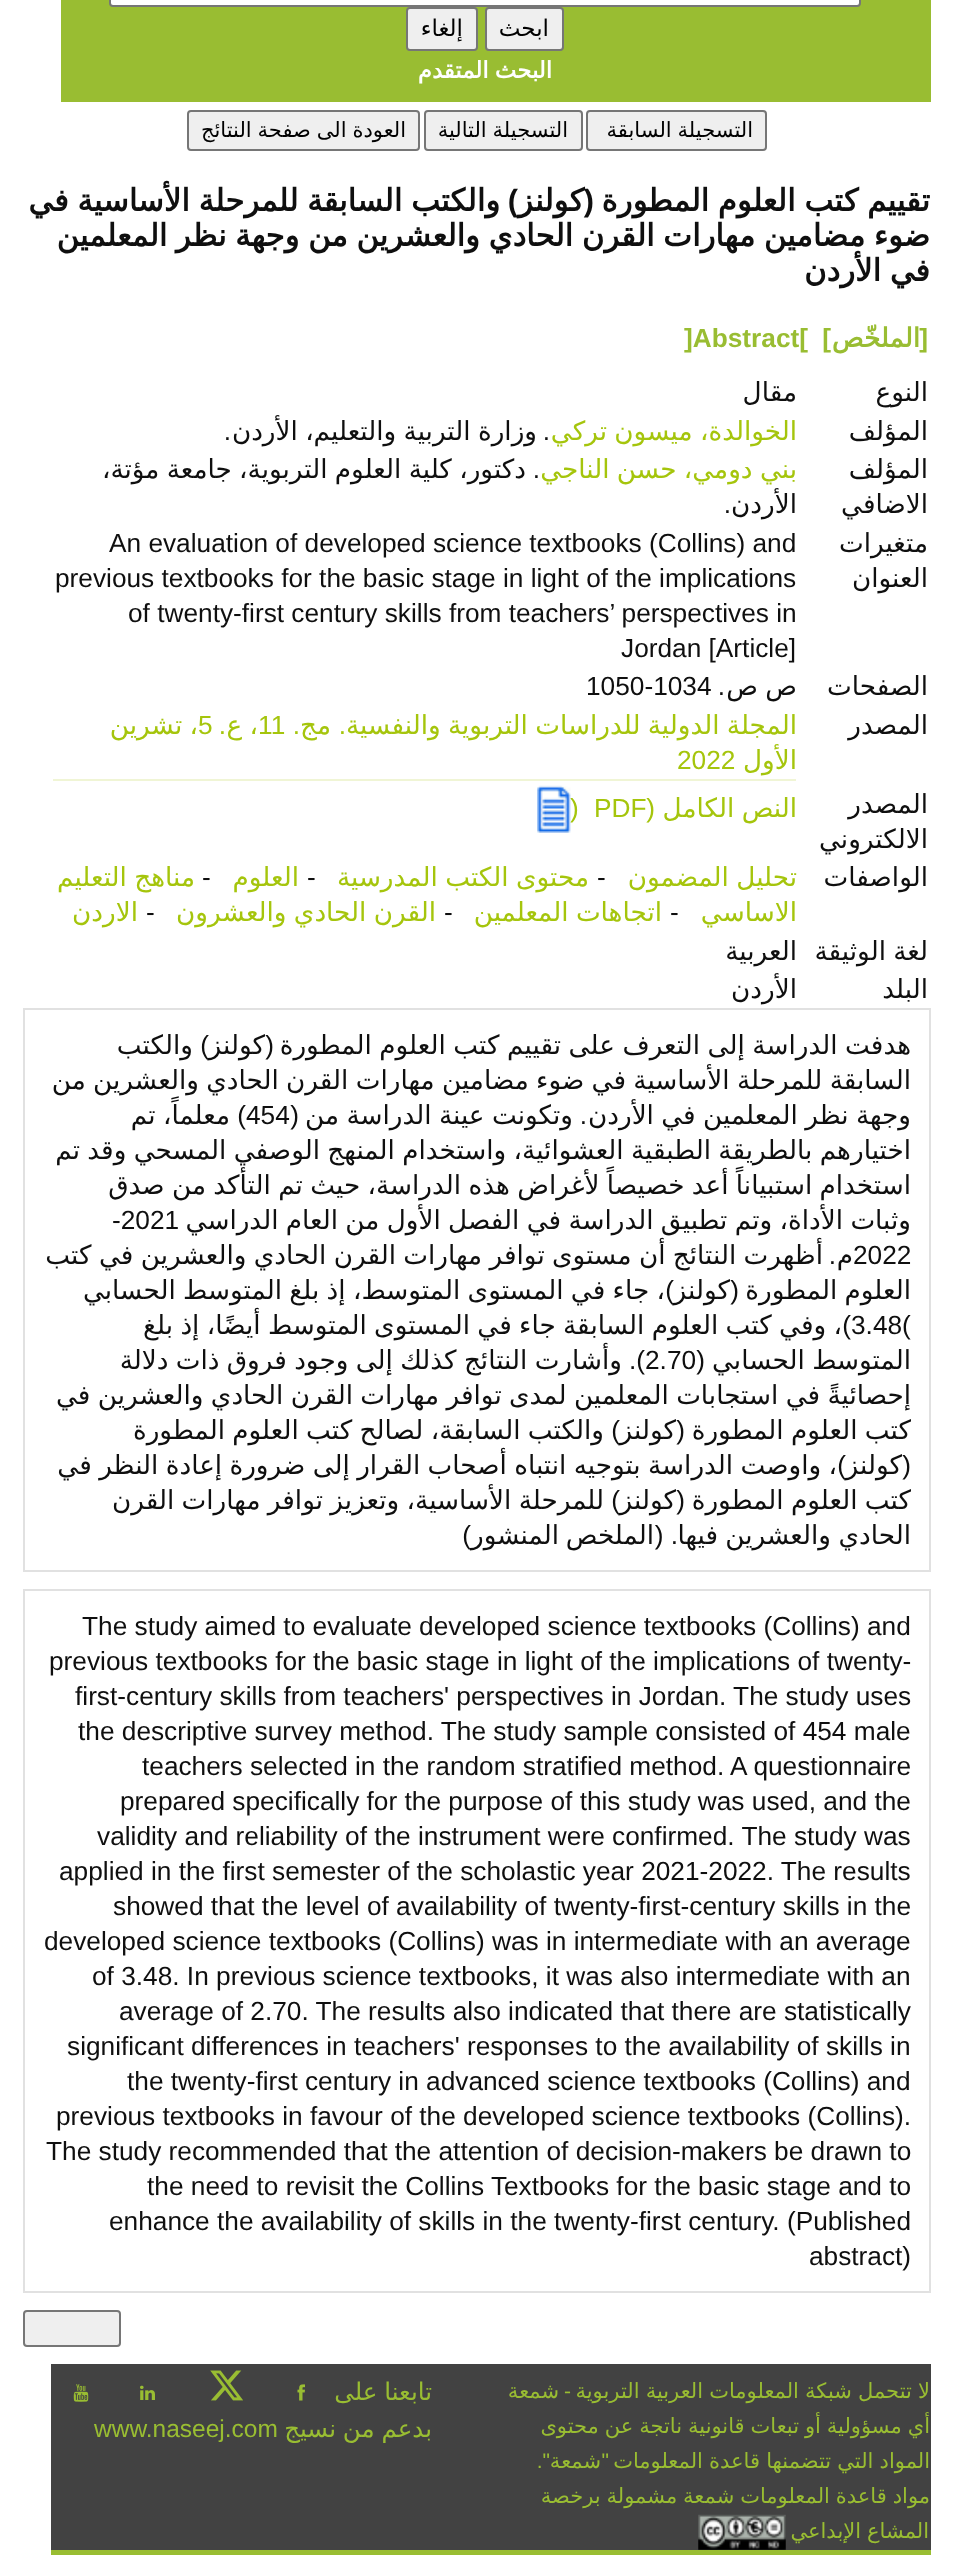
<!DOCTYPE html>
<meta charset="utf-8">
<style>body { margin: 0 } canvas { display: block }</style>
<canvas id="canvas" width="953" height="2555"></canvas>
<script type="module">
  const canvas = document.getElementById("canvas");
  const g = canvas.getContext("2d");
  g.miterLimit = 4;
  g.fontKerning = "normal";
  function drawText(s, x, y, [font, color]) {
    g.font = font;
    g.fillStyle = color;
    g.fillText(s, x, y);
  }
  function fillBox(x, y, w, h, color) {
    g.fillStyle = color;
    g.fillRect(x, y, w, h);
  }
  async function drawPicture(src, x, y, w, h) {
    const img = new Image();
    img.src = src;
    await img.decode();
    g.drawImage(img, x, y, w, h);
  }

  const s1 = ["23px DejaVu Sans", "#000000"];
  const s2 = ["bold 22.75px DejaVu Sans", "#FFFFFF"];
  const s3 = ["21px DejaVu Sans", "#000000"];
  const s4 = ["bold 30.7px DejaVu Sans", "#0F0F0F"];
  const s5 = ["bold 30.7px Liberation Sans", "#0F0F0F"];
  const s6 = ["bold 26.25px Liberation Sans", "#99BD32"];
  const s7 = ["bold 26.25px DejaVu Sans", "#99BD32"];
  const s8 = ["26.25px DejaVu Sans", "#0F0F0F"];
  const s9 = ["26.25px DejaVu Sans", "#A5C50C"];
  const s10 = ["26.25px Liberation Sans", "#0F0F0F"];
  const s11 = ["26.25px Liberation Sans", "#A5C50C"];
  const s12 = ["21px DejaVu Sans", "#99BD32"];
  const s13 = ["21px Liberation Sans", "#99BD32"];
  const s14 = ["24.5px DejaVu Sans", "#99BD32"];
  const s15 = ["24.5px Liberation Sans", "#99BD32"];

  fillBox(0, 0, 953, 2555, "#FFFFFF");
  fillBox(61, 0, 870, 102, "#99BD32");
  g.fillStyle = "#FFFFFF";
  g.beginPath();
  g.roundRect(110, -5, 750, 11, 3);
  g.fill();
  g.strokeStyle = "#767676";
  g.lineWidth = 2;
  g.stroke();
  g.fillStyle = "#EFEFEF";
  g.beginPath();
  g.roundRect(486, 8, 77, 42, 3);
  g.fill();
  g.stroke();
  g.direction = "rtl";
  drawText("ابحث", 549, 36, s1);
  g.fillStyle = "#EFEFEF";
  g.beginPath();
  g.roundRect(407, 8, 70, 42, 3);
  g.fill();
  g.stroke();
  drawText("إلغاء", 463, 36, s1);
  g.wordSpacing = "-1px";
  drawText("البحث المتقدم", 552, 78, s2);
  g.fillStyle = "#EFEFEF";
  g.beginPath();
  g.roundRect(587, 111, 179, 39, 3);
  g.fill();
  g.stroke();
  g.wordSpacing = "-0.75px";
  drawText("التسجيلة السابقة", 753, 137, s3);
  g.fillStyle = "#EFEFEF";
  g.beginPath();
  g.roundRect(425, 111, 157, 39, 3);
  g.fill();
  g.stroke();
  drawText("التسجيلة التالية", 568, 137, s3);
  g.fillStyle = "#EFEFEF";
  g.beginPath();
  g.roundRect(188, 111, 231, 39, 3);
  g.fill();
  g.stroke();
  drawText("العودة الى صفحة النتائج", 406, 137, s3);
  g.wordSpacing = "-1px";
  drawText("تقييم كتب العلوم المطورة", 930, 211, s4);
  g.wordSpacing = "0px";
  drawText("(", 594, 211, s5);
  drawText(")", 518, 211, s5);
  drawText("كولنز", 584, 211, s4);
  g.wordSpacing = "-1px";
  drawText("والكتب السابقة للمرحلة الأساسية في", 500, 211, s4);
  g.wordSpacing = "-1.25px";
  drawText("ضوء مضامين مهارات القرن الحادي والعشرين من وجهة نظر المعلمين", 930, 246, s4);
  g.wordSpacing = "-1px";
  drawText("في الأردن", 930, 281, s4);
  g.wordSpacing = "0px";
  drawText("[", 928, 347, s6);
  drawText("الملخّص", 920, 347, s7);
  drawText("]", 831, 347, s6);
  g.direction = "ltr";
  drawText("]Abstract[", 684, 347, s6);
  g.direction = "rtl";
  drawText("النوع", 928, 401, s8);
  drawText("مقال", 797, 401, s8);
  drawText("المؤلف", 928, 440, s8);
  g.wordSpacing = "-1px";
  drawText("الخوالدة، ميسون تركي", 797, 440, s9);
  g.wordSpacing = "0px";
  drawText(".", 550, 440, s10);
  g.wordSpacing = "-1px";
  drawText("وزارة التربية والتعليم، الأردن", 537, 440, s8);
  g.wordSpacing = "0px";
  drawText(".", 231, 440, s10);
  drawText("المؤلف", 928, 478, s8);
  drawText("الاضافي", 928, 513, s8);
  g.wordSpacing = "-1px";
  drawText("بني دومي، حسن الناجي", 797, 478, s9);
  g.wordSpacing = "0px";
  drawText(".", 540, 478, s10);
  g.wordSpacing = "-1px";
  drawText("دكتور، كلية العلوم التربوية، جامعة مؤتة،", 526, 478, s8);
  g.wordSpacing = "0px";
  drawText("الأردن", 797, 513, s8);
  drawText(".", 731, 513, s10);
  drawText("متغيرات", 928, 552, s8);
  drawText("العنوان", 928, 587, s8);
  g.direction = "ltr";
  drawText("An evaluation of developed science textbooks (Collins) and", 109, 552, s10);
  drawText("previous textbooks for the basic stage in light of the implications", 55, 587, s10);
  drawText("of twenty-first century skills from teachers’ perspectives in", 128, 622, s10);
  drawText("Jordan [Article]", 621, 657, s10);
  g.direction = "rtl";
  drawText("الصفحات", 928, 695, s8);
  g.wordSpacing = "-1px";
  drawText("ص ص", 797, 695, s8);
  g.wordSpacing = "0px";
  drawText(".", 725, 695, s10);
  g.direction = "ltr";
  drawText("1050-1034", 586, 695, s10);
  g.direction = "rtl";
  drawText("المصدر", 928, 734, s8);
  g.wordSpacing = "-1px";
  drawText("المجلة الدولية للدراسات التربوية والنفسية", 797, 734, s9);
  g.wordSpacing = "0px";
  drawText(".", 346, 734, s11);
  drawText("مج", 331, 734, s9);
  drawText(".", 300, 734, s11);
  g.direction = "ltr";
  drawText("11", 258, 734, s11);
  g.wordSpacing = "-1px";
  g.direction = "rtl";
  drawText("، ع", 258, 734, s9);
  g.wordSpacing = "0px";
  drawText(".", 226, 734, s11);
  g.direction = "ltr";
  drawText("5", 198, 734, s11);
  g.wordSpacing = "-1px";
  g.direction = "rtl";
  drawText("، تشرين", 198, 734, s9);
  g.wordSpacing = "0px";
  drawText("الأول", 797, 769, s9);
  g.direction = "ltr";
  drawText("2022", 677, 769, s11);
  fillBox(53, 779, 743, 2, "#F0F5D5");
  g.direction = "rtl";
  drawText("المصدر", 928, 813, s8);
  drawText("الالكتروني", 928, 848, s8);
  g.wordSpacing = "-1px";
  drawText("النص الكامل", 797, 817, s9);
  g.wordSpacing = "0px";
  drawText("(", 655, 817, s11);
  g.direction = "ltr";
  drawText("PDF", 594, 817, s11);
  drawText(")", 570, 817, s11);
  await drawPicture("pic1.png", 537, 785, 34, 48);
  g.direction = "rtl";
  drawText("الواصفات", 928, 886, s8);
  g.wordSpacing = "-1px";
  drawText("تحليل المضمون", 797, 886, s9);
  g.wordSpacing = "0px";
  g.direction = "ltr";
  drawText("-", 597, 886, s10);
  g.wordSpacing = "-1px";
  g.direction = "rtl";
  drawText("محتوى الكتب المدرسية", 589, 886, s9);
  g.wordSpacing = "0px";
  g.direction = "ltr";
  drawText("-", 307, 886, s10);
  g.direction = "rtl";
  drawText("العلوم", 299, 886, s9);
  g.direction = "ltr";
  drawText("-", 202, 886, s10);
  g.wordSpacing = "-1px";
  g.direction = "rtl";
  drawText("مناهج التعليم", 195, 886, s9);
  g.wordSpacing = "0px";
  drawText("الاساسي", 797, 921, s9);
  g.direction = "ltr";
  drawText("-", 670, 921, s10);
  g.wordSpacing = "-1px";
  g.direction = "rtl";
  drawText("اتجاهات المعلمين", 662, 921, s9);
  g.wordSpacing = "0px";
  g.direction = "ltr";
  drawText("-", 444, 921, s10);
  g.wordSpacing = "-1px";
  g.direction = "rtl";
  drawText("القرن الحادي والعشرون", 436, 921, s9);
  g.wordSpacing = "0px";
  g.direction = "ltr";
  drawText("-", 146, 921, s10);
  g.direction = "rtl";
  drawText("الاردن", 138, 921, s9);
  g.wordSpacing = "-1px";
  drawText("لغة الوثيقة", 928, 960, s8);
  g.wordSpacing = "0px";
  drawText("العربية", 797, 960, s8);
  drawText("البلد", 928, 998, s8);
  drawText("الأردن", 797, 998, s8);
  g.strokeStyle = "#E1E1E1";
  g.strokeRect(24, 1009, 906, 562);
  g.wordSpacing = "-0.75px";
  drawText("هدفت الدراسة إلى التعرف على تقييم كتب العلوم المطورة", 911, 1054, s8);
  g.wordSpacing = "0px";
  drawText("(", 274, 1054, s10);
  drawText(")", 209, 1054, s10);
  drawText("كولنز", 265, 1054, s8);
  drawText("والكتب", 193, 1054, s8);
  g.wordSpacing = "-1px";
  drawText("السابقة للمرحلة الأساسية في ضوء مضامين مهارات القرن الحادي والعشرين من", 911, 1089, s8);
  drawText("وجهة نظر المعلمين في الأردن", 911, 1124, s8);
  g.wordSpacing = "0px";
  drawText(".", 587, 1124, s10);
  g.wordSpacing = "-1px";
  drawText("وتكونت عينة الدراسة من", 573, 1124, s8);
  g.wordSpacing = "0px";
  drawText("(", 299, 1124, s10);
  g.direction = "ltr";
  drawText("454", 246, 1124, s10);
  g.direction = "rtl";
  drawText(")", 246, 1124, s10);
  g.wordSpacing = "-1px";
  drawText("معلماً، تم", 230, 1124, s8);
  drawText("اختيارهم بالطريقة الطبقية العشوائية، واستخدام المنهج الوصفي المسحي وقد تم", 911, 1159, s8);
  drawText("استخدام استبياناً أعد خصيصاً لأغراض هذه الدراسة، حيث تم التأكد من صدق", 911, 1194, s8);
  drawText("وثبات الأداة، وتم تطبيق الدراسة في الفصل الأول من العام الدراسي", 911, 1229, s8);
  g.wordSpacing = "0px";
  g.direction = "ltr";
  drawText("-2021", 112, 1229, s10);
  drawText("2022", 853, 1264, s10);
  g.direction = "rtl";
  drawText("م", 853, 1264, s8);
  drawText(".", 836, 1264, s10);
  g.wordSpacing = "-1px";
  drawText("أظهرت النتائج أن مستوى توافر مهارات القرن الحادي والعشرين في كتب", 823, 1264, s8);
  drawText("العلوم المطورة", 911, 1299, s8);
  g.wordSpacing = "0px";
  drawText("كولنز", 730, 1299, s8);
  g.wordSpacing = "-1px";
  drawText("، جاء في المستوى المتوسط، إذ بلغ المتوسط الحسابي", 665, 1299, s8);
  g.wordSpacing = "0px";
  drawText("(", 739, 1299, s10);
  drawText(")", 674, 1299, s10);
  g.wordSpacing = "-1px";
  drawText("، وفي كتب العلوم السابقة جاء في المستوى المتوسط أيضًا، إذ بلغ", 842, 1334, s8);
  g.wordSpacing = "0px";
  g.direction = "ltr";
  drawText("3.48(", 851, 1334, s10);
  g.direction = "rtl";
  drawText(")", 851, 1334, s10);
  g.wordSpacing = "-1px";
  drawText("المتوسط الحسابي", 911, 1369, s8);
  g.wordSpacing = "0px";
  drawText("(", 705, 1369, s10);
  g.direction = "ltr";
  drawText("2.70", 645, 1369, s10);
  g.direction = "rtl";
  drawText(").", 645, 1369, s10);
  g.wordSpacing = "-1px";
  drawText("وأشارت النتائج كذلك إلى وجود فروق ذات دلالة", 622, 1369, s8);
  drawText("إحصائيةً في استجابات المعلمين لمدى توافر مهارات القرن الحادي والعشرين في", 911, 1404, s8);
  drawText("كتب العلوم المطورة", 911, 1439, s8);
  g.wordSpacing = "0px";
  drawText("(", 685, 1439, s10);
  drawText("كولنز", 676, 1439, s8);
  drawText(")", 620, 1439, s10);
  g.wordSpacing = "-1px";
  drawText("والكتب السابقة، لصالح كتب العلوم المطورة", 604, 1439, s8);
  drawText("، واوصت الدراسة بتوجيه انتباه أصحاب القرار إلى ضرورة إعادة النظر في", 837, 1474, s8);
  g.wordSpacing = "0px";
  drawText(")", 846, 1474, s10);
  drawText("كولنز", 902, 1474, s8);
  drawText("(", 911, 1474, s10);
  g.wordSpacing = "-1px";
  drawText("كتب العلوم المطورة", 911, 1509, s8);
  g.wordSpacing = "0px";
  drawText("(", 685, 1509, s10);
  drawText("كولنز", 676, 1509, s8);
  drawText(")", 620, 1509, s10);
  g.wordSpacing = "-1px";
  drawText("للمرحلة الأساسية، وتعزيز توافر مهارات القرن", 604, 1509, s8);
  g.wordSpacing = "0px";
  drawText("الحادي", 911, 1544, s8);
  drawText("والعشرين", 831, 1544, s8);
  drawText("فيها", 718, 1544, s8);
  drawText(". (", 678, 1544, s10);
  drawText("الملخص", 654, 1544, s8);
  drawText("المنشور", 559, 1544, s8);
  drawText(")", 471, 1544, s10);
  g.strokeRect(24, 1590, 906, 702);
  g.direction = "ltr";
  drawText("The study aimed to evaluate developed science textbooks (Collins) and", 82, 1635, s10);
  drawText("previous textbooks for the basic stage in light of the implications of twenty-", 49, 1670, s10);
  drawText("first-century skills from teachers' perspectives in Jordan. The study uses", 75, 1705, s10);
  drawText("the descriptive survey method. The study sample consisted of 454 male", 78, 1740, s10);
  drawText("teachers selected in the random stratified method. A questionnaire", 142, 1775, s10);
  drawText("prepared specifically for the purpose of this study was used, and the", 120, 1810, s10);
  drawText("validity and reliability of the instrument were confirmed. The study was", 97, 1845, s10);
  drawText("applied in the first semester of the scholastic year 2021-2022. The results", 59, 1880, s10);
  drawText("showed that the level of availability of twenty-first-century skills in the", 113, 1915, s10);
  drawText("developed science textbooks (Collins) was in intermediate with an average", 44, 1950, s10);
  drawText("of 3.48. In previous science textbooks, it was also intermediate with an", 92, 1985, s10);
  drawText("average of 2.70. The results also indicated that there are statistically", 119, 2020, s10);
  drawText("significant differences in teachers' responses to the availability of skills in", 67, 2055, s10);
  drawText("the twenty-first century in advanced science textbooks (Collins) and", 127, 2090, s10);
  drawText("previous textbooks in favour of the developed science textbooks (Collins).", 56, 2125, s10);
  drawText("The study recommended that the attention of decision-makers be drawn to", 46, 2160, s10);
  drawText("the need to revisit the Collins Textbooks for the basic stage and to", 147, 2195, s10);
  drawText("enhance the availability of skills in the twenty-first century. (Published", 109, 2230, s10);
  drawText("abstract)", 809, 2265, s10);
  g.fillStyle = "#EFEFEF";
  g.beginPath();
  g.roundRect(24, 2311, 96, 35, 3);
  g.fill();
  g.strokeStyle = "#767676";
  g.stroke();
  fillBox(51, 2364, 880, 186, "#424242");
  fillBox(51, 2550, 880, 5, "#99BD32");
  g.wordSpacing = "-0.5px";
  g.direction = "rtl";
  drawText("لا تتحمل شبكة المعلومات العربية التربوية", 930, 2398, s12);
  g.wordSpacing = "0px";
  drawText("-", 571, 2398, s13);
  drawText("شمعة", 559, 2398, s12);
  g.wordSpacing = "-0.75px";
  drawText("أي مسؤولية أو تبعات قانونية ناتجة عن محتوى", 930, 2433, s12);
  g.wordSpacing = "-0.5px";
  drawText("المواد التي تتضمنها قاعدة المعلومات", 930, 2468, s12);
  g.wordSpacing = "0px";
  drawText("\"", 609, 2468, s13);
  drawText("شمعة", 601, 2468, s12);
  drawText("\".", 550, 2468, s13);
  g.wordSpacing = "-0.75px";
  drawText("مواد قاعدة المعلومات شمعة مشمولة برخصة", 930, 2503, s12);
  drawText("المشاع الإبداعي", 929, 2538, s12);
  await drawPicture("pic2.png", 698, 2514, 88, 36);
  g.wordSpacing = "-1px";
  drawText("تابعنا على", 432, 2400, s14);
  await drawPicture("pic3.png", 297, 2384, 8, 17);
  await drawPicture("pic4.png", 210, 2370, 33, 31);
  await drawPicture("pic5.png", 140, 2385, 15, 15);
  await drawPicture("pic6.png", 73, 2384, 16, 18);
  drawText("بدعم من نسيج", 432, 2437, s14);
  g.wordSpacing = "0px";
  g.direction = "ltr";
  drawText("www.naseej.com", 94, 2437, s15);
</script>
